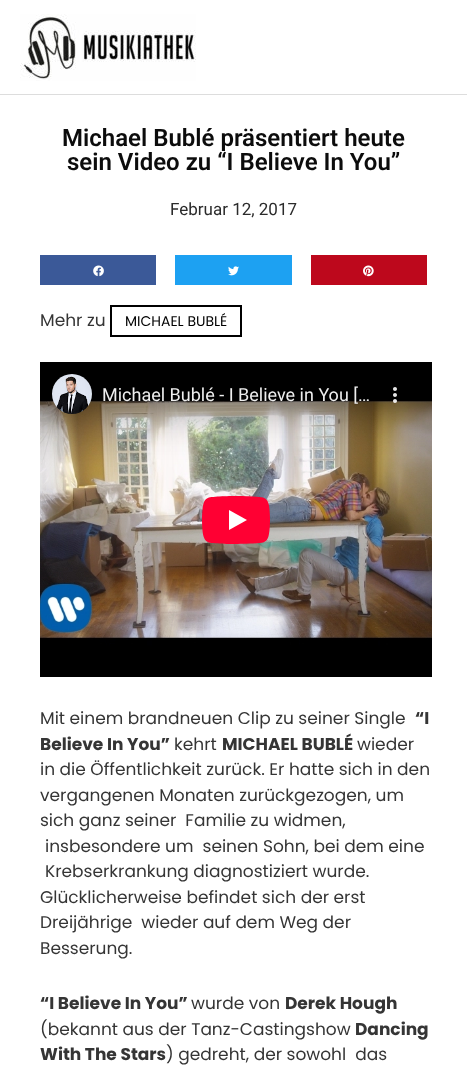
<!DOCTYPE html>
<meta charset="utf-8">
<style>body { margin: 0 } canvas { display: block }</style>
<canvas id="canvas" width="467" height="1068"></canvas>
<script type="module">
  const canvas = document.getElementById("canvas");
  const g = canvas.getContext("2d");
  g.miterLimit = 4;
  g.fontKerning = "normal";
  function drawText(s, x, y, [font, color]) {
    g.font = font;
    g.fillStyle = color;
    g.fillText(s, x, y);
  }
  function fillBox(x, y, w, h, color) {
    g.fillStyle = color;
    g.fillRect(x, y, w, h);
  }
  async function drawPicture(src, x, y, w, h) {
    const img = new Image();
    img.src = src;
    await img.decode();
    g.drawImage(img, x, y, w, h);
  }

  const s1 = ["600 24px Roboto", "#0C0C0C"];
  const s2 = ["17px Roboto", "#2B2B2B"];
  const s3 = ["17px Poppins", "#353535"];
  const s4 = ["14px Poppins", "#000000"];
  const s5 = ["bold 17px Poppins", "#353535"];

  fillBox(0, 0, 467, 1068, "#FFFFFF");
  fillBox(0, 94, 467, 1, "#DDDDDD");
  await drawPicture("pic1.png", 20, 14, 176, 67);
  drawText("Michael Bublé präsentiert heute", 62, 146, s1);
  drawText("sein Video zu “I Believe In You”", 67, 170, s1);
  drawText("Februar 12, 2017", 170, 215, s2);
  fillBox(40, 255, 116, 30, "#3B5998");
  await drawPicture("pic2.png", 93, 265, 11, 12);
  fillBox(175, 255, 117, 30, "#1DA1F2");
  await drawPicture("pic3.png", 228, 266, 11, 10);
  fillBox(311, 255, 116, 30, "#BD081C");
  await drawPicture("pic4.png", 363, 265, 11, 12);
  drawText("Mehr zu", 40, 326, s3);
  g.strokeStyle = "#000000";
  g.lineWidth = 2;
  g.strokeRect(111, 306, 130, 30);
  drawText("MICHAEL BUBLÉ", 125, 326, s4);
  await drawPicture("pic5.png", 40, 362, 392, 315);
  drawText("Mit einem brandneuen Clip zu seiner Single", 40, 724, s3);
  drawText("“I", 415, 724, s5);
  drawText("Believe In You”", 40, 750, s5);
  drawText("kehrt", 174, 750, s3);
  drawText("MICHAEL BUBLÉ", 222, 750, s5);
  drawText("wieder", 357, 750, s3);
  drawText("in die Öffentlichkeit zurück. Er hatte sich in den", 40, 775, s3);
  drawText("vergangenen Monaten zurückgezogen, um", 40, 801, s3);
  drawText("sich ganz seiner  Familie zu widmen,", 40, 826, s3);
  drawText("insbesondere um  seinen Sohn, bei dem eine", 45, 852, s3);
  drawText("Krebserkrankung diagnostiziert wurde.", 45, 877, s3);
  drawText("Glücklicherweise befindet sich der erst", 40, 903, s3);
  drawText("Dreijährige  wieder auf dem Weg der", 40, 928, s3);
  drawText("Besserung.", 40, 954, s3);
  drawText("“I Believe In You”", 40, 1009, s5);
  drawText("wurde von", 191, 1009, s3);
  drawText("Derek Hough", 285, 1009, s5);
  drawText("(bekannt aus der Tanz-Castingshow", 40, 1035, s3);
  drawText("Dancing", 355, 1035, s5);
  drawText("With The Stars", 40, 1060, s5);
  drawText(") gedreht, der sowohl  das", 166, 1060, s3);
</script>
